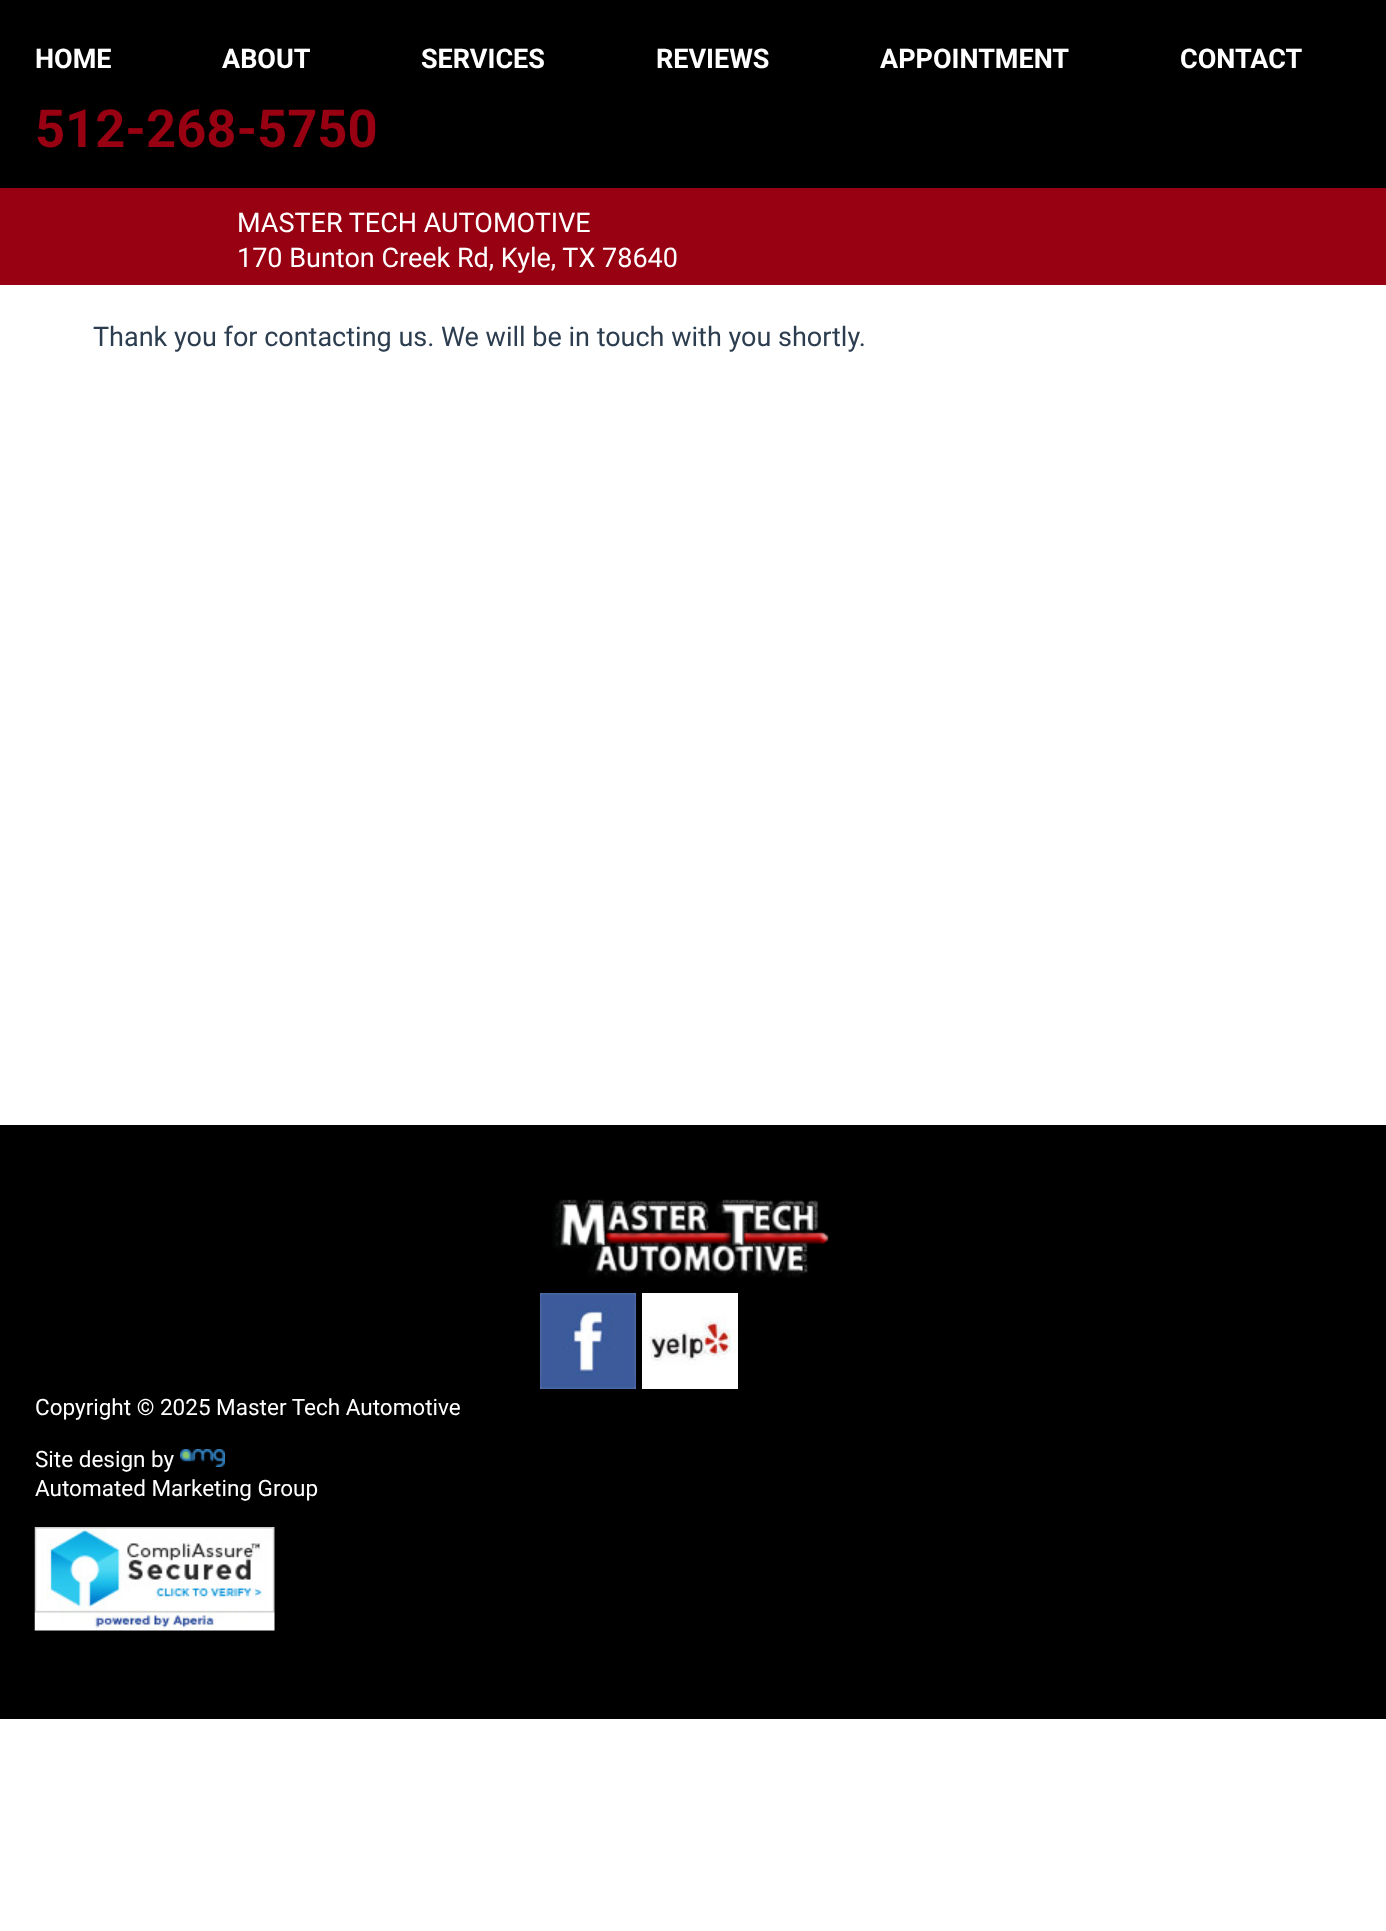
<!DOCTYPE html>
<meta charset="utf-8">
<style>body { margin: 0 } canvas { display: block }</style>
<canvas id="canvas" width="1386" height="1931"></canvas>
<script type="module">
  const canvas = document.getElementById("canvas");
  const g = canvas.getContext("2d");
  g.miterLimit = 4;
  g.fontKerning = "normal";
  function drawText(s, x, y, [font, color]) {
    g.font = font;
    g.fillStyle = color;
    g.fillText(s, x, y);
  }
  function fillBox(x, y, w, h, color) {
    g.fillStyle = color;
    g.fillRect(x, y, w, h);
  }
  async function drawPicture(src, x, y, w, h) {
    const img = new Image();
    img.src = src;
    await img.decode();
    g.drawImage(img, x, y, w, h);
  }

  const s1 = ["bold 27px Roboto", "#FFFFFF"];
  const s2 = ["bold 52.5px Roboto", "#970111"];
  const s3 = ["27px Roboto", "#FFFFFF"];
  const s4 = ["27px Roboto", "#2C3D4F"];
  const s5 = ["22.5px Roboto", "#FFFFFF"];

  fillBox(0, 0, 1386, 1931, "#FFFFFF");
  fillBox(0, 0, 1386, 188, "#000000");
  fillBox(0, 188, 1386, 97, "#970111");
  drawText("HOME", 35, 68, s1);
  drawText("ABOUT", 222, 68, s1);
  drawText("SERVICES", 421, 68, s1);
  drawText("REVIEWS", 656, 68, s1);
  drawText("APPOINTMENT", 880, 68, s1);
  drawText("CONTACT", 1180, 68, s1);
  drawText("512-268-5750", 35, 147, s2);
  drawText("MASTER TECH AUTOMOTIVE", 237, 232, s3);
  drawText("170 Bunton Creek Rd, Kyle, TX 78640", 237, 267, s3);
  drawText("Thank you for contacting us. We will be in touch with you shortly.", 93, 346, s4);
  fillBox(0, 1125, 1386, 594, "#000000");
  await drawPicture("pic1.png", 552, 1199, 277, 79);
  await drawPicture("pic2.png", 540, 1293, 96, 96);
  await drawPicture("pic3.png", 642, 1293, 96, 96);
  drawText("Copyright © 2025 Master Tech Automotive", 35, 1415, s5);
  drawText("Site design by", 35, 1467, s5);
  await drawPicture("pic4.png", 180, 1449, 45, 18);
  drawText("Automated Marketing Group", 35, 1496, s5);
  await drawPicture("pic5.png", 34, 1527, 241, 104);
</script>
